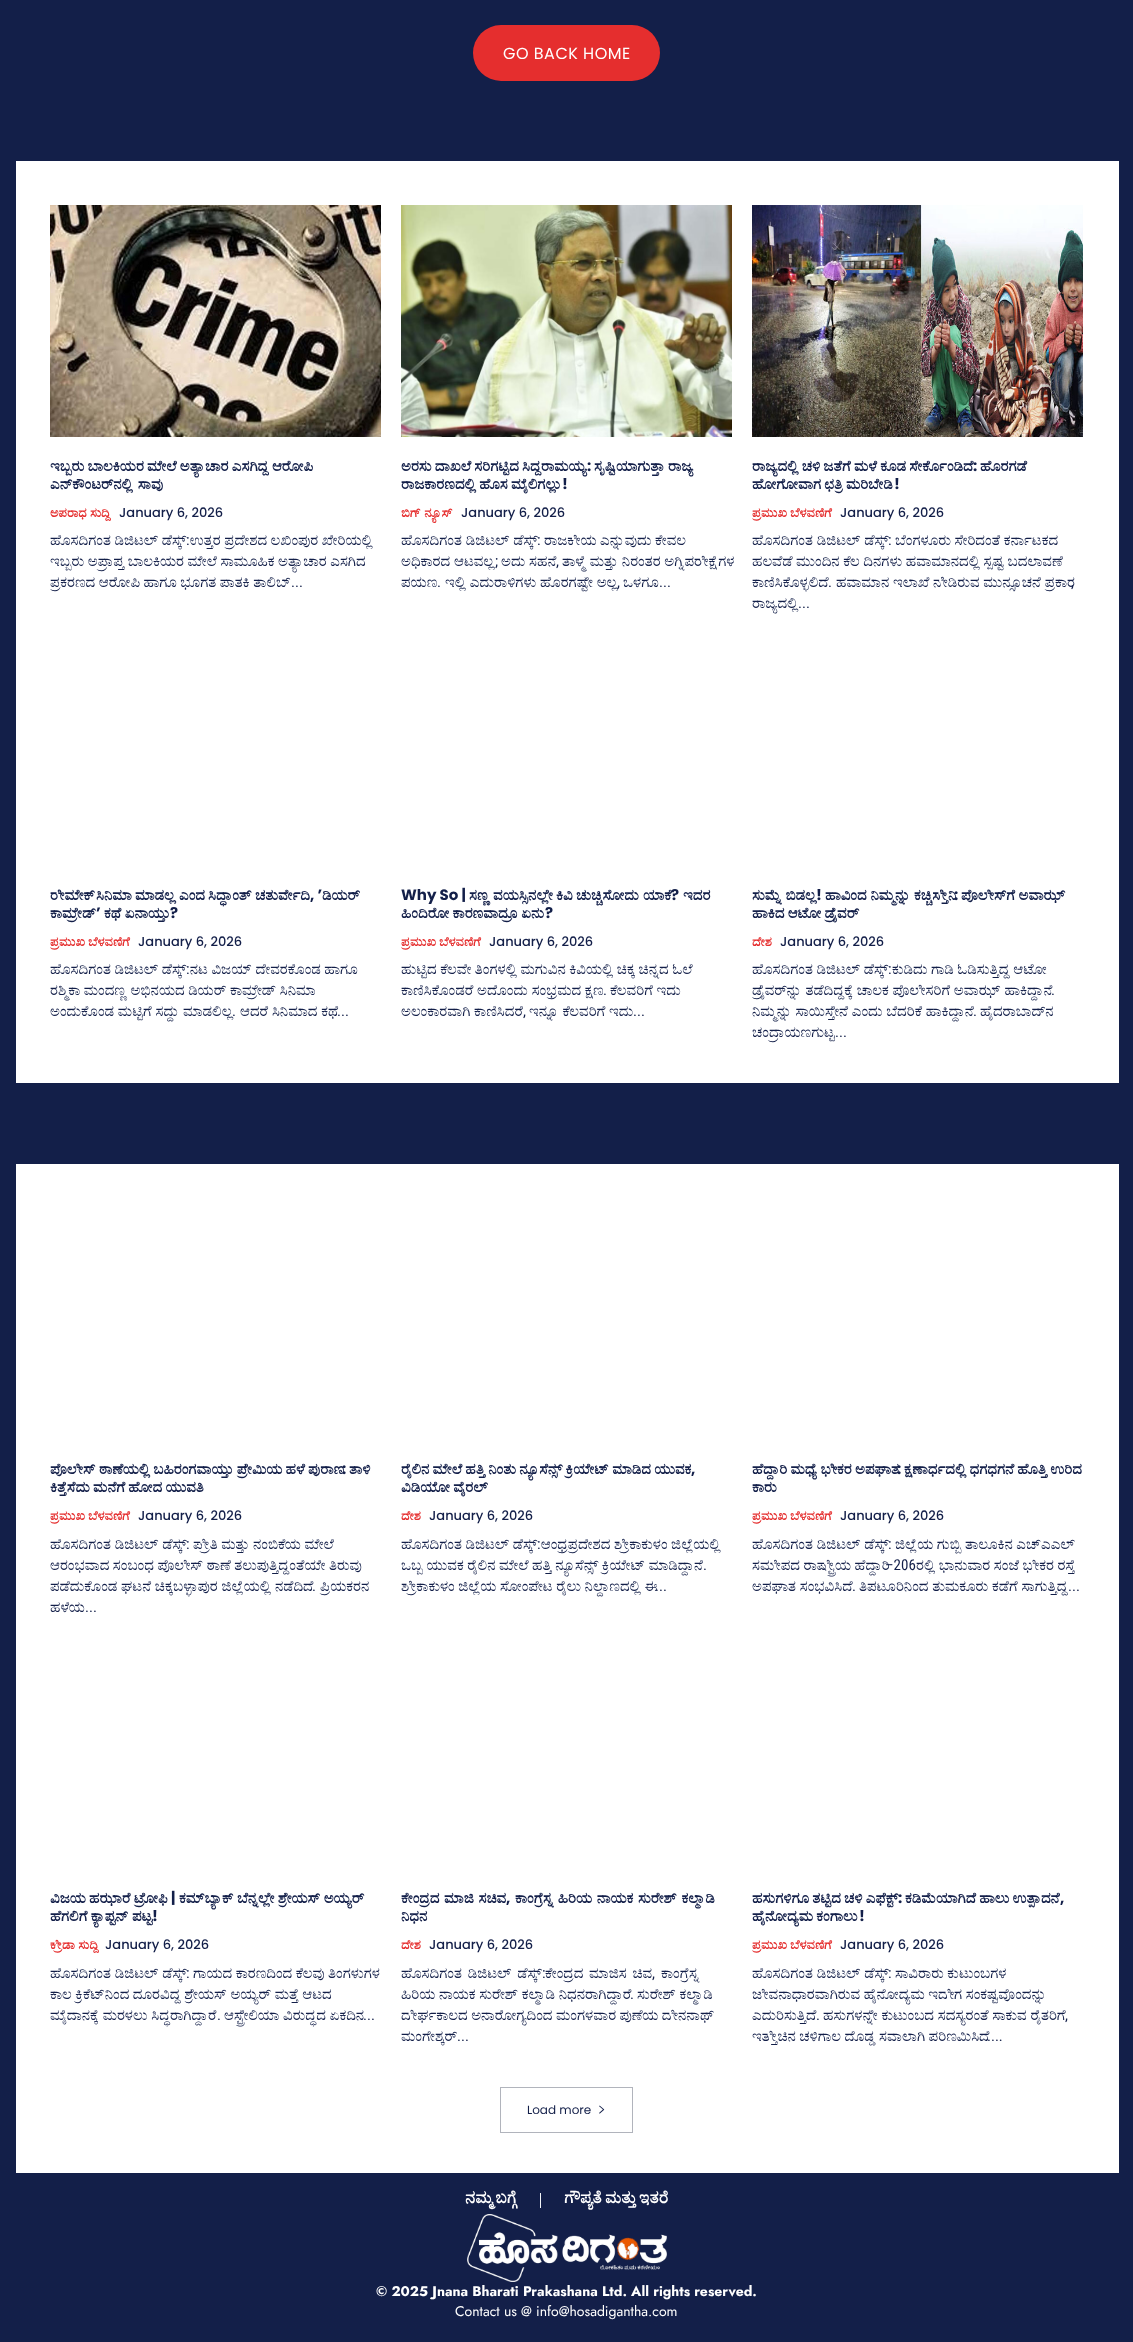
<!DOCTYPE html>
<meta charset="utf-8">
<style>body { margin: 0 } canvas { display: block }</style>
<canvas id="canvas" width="1133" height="2342"></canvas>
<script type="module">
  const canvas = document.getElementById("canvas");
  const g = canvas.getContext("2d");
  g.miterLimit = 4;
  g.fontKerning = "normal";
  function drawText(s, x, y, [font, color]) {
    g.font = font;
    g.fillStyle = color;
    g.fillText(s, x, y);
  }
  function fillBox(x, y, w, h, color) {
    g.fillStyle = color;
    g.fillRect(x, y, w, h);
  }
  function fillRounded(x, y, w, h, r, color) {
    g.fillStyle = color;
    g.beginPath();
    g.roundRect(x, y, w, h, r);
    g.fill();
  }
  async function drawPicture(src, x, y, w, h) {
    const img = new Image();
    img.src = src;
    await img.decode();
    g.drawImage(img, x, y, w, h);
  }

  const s1 = ["16px Poppins", "#FFFFFF"];
  const s2 = ["bold 15px FreeSerif", "#131F49"];
  const s3 = ["bold 13px FreeSerif", "#E52E2E"];
  const s4 = ["500 13px Poppins", "#131F49"];
  const s5 = ["15px FreeSerif", "#131F49"];
  const s6 = ["15px Roboto Condensed", "#131F49"];
  const s7 = ["bold 15px Poppins", "#131F49"];
  const s8 = ["12px Poppins", "#131F49"];
  const s9 = ["bold 15px Noto Serif Kannada", "#FFFFFF"];
  const s10 = ["bold 14px Jost", "#FFFFFF"];
  const s11 = ["14px Jost", "#FFFFFF"];

  fillBox(0, 0, 1133, 2342, "#131F49");
  fillRounded(473, 25, 187, 56, 28, "#E52E2E");
  g.letterSpacing = "0.5px";
  drawText("GO BACK HOME", 503, 59, s1);
  fillBox(16, 161, 1103, 922, "#FFFFFF");
  await drawPicture("pic1.png", 50, 205, 331, 232);
  g.letterSpacing = "0px";
  g.wordSpacing = "-0.5px";
  drawText("ಇಬ್ಬರು ಬಾಲಕಿಯರ ಮೇಲೆ ಅತ್ಯಾಚಾರ ಎಸಗಿದ್ದ ಆರೋಪಿ", 50, 471, s2);
  g.wordSpacing = "1px";
  drawText("ಎನ್‌ಕೌಂಟರ್‌ನಲ್ಲಿ ಸಾವು", 50, 489, s2);
  g.wordSpacing = "0px";
  drawText("ಅಪರಾಧ ಸುದ್ದಿ", 50, 517, s3);
  drawText("January 6, 2026", 119, 517, s4);
  g.wordSpacing = "-0.25px";
  drawText("ಹೊಸದಿಗಂತ ಡಿಜಿಟಲ್‌ ಡೆಸ್ಕ್‌ ಉತ್ತರ ಪ್ರದೇಶದ ಲಖಿಂಪುರ ಖೇರಿಯಲ್ಲಿ", 50, 545, s5);
  g.wordSpacing = "0px";
  drawText(":", 186, 545, s6);
  g.wordSpacing = "-0.25px";
  drawText("ಇಬ್ಬರು ಅಪ್ರಾಪ್ತ ಬಾಲಕಿಯರ ಮೇಲೆ ಸಾಮೂಹಿಕ ಅತ್ಯಾಚಾರ ಎಸಗಿದ", 50, 566, s5);
  drawText("ಪ್ರಕರಣದ ಆರೋಪಿ ಹಾಗೂ ಭೂಗತ ಪಾತಕಿ ತಾಲಿಬ್", 50, 587, s5);
  g.wordSpacing = "0px";
  drawText("...", 291, 587, s6);
  await drawPicture("pic2.png", 401, 205, 331, 232);
  g.wordSpacing = "-0.5px";
  drawText("ಅರಸು ದಾಖಲೆ ಸರಿಗಟ್ಟಿದ ಸಿದ್ದರಾಮಯ್ಯ", 401, 471, s2);
  g.wordSpacing = "0px";
  drawText(":", 587, 471, s7);
  g.wordSpacing = "-0.5px";
  drawText("ಸೃಷ್ಟಿಯಾಗುತ್ತಾ ರಾಜ್ಯ", 594, 471, s2);
  drawText("ರಾಜಕಾರಣದಲ್ಲಿ ಹೊಸ ಮೈಲಿಗಲ್ಲು", 401, 489, s2);
  g.wordSpacing = "0px";
  drawText("!", 562, 489, s7);
  drawText("ಬಿಗ್ ನ್ಯೂಸ್", 401, 517, s3);
  drawText("January 6, 2026", 461, 517, s4);
  drawText("ಹೊಸದಿಗಂತ ಡಿಜಿಟಲ್ ಡೆಸ್ಕ್", 401, 545, s5);
  drawText(":", 537, 545, s6);
  g.wordSpacing = "-0.25px";
  drawText("ರಾಜಕೀಯ ಎನ್ನುವುದು ಕೇವಲ", 544, 545, s5);
  g.wordSpacing = "0px";
  drawText("ಅಧಿಕಾರದ ಆಟವಲ್ಲ", 401, 566, s5);
  drawText(";", 495, 566, s6);
  drawText("ಅದು ಸಹನೆ", 501, 566, s5);
  drawText(",", 556, 566, s6);
  drawText("ತಾಳ್ಮೆ ಮತ್ತು ನಿರಂತರ ಅಗ್ನಿಪರೀಕ್ಷೆಗಳ", 562, 566, s5);
  drawText("ಪಯಣ", 401, 587, s5);
  drawText(".", 437, 587, s6);
  drawText("ಇಲ್ಲಿ ಎದುರಾಳಿಗಳು ಹೊರಗಷ್ಟೇ ಅಲ್ಲ", 445, 587, s5);
  drawText(",", 617, 587, s6);
  drawText("ಒಳಗೂ", 623, 587, s5);
  drawText("...", 659, 587, s6);
  await drawPicture("pic3.png", 752, 205, 331, 232);
  g.wordSpacing = "-0.5px";
  drawText("ರಾಜ್ಯದಲ್ಲಿ ಚಳಿ ಜತೆಗೆ ಮಳೆ ಕೂಡ ಸೇರ್ಕೊಂಡಿದೆ", 752, 471, s2);
  g.wordSpacing = "0px";
  drawText(":", 973, 471, s7);
  drawText("ಹೊರಗಡೆ", 980, 471, s2);
  g.wordSpacing = "-0.5px";
  drawText("ಹೋಗೋವಾಗ ಛತ್ರಿ ಮರಿಬೇಡಿ", 752, 489, s2);
  g.wordSpacing = "0px";
  drawText("!", 894, 489, s7);
  drawText("ಪ್ರಮುಖ ಬೆಳವಣಿಗೆ", 752, 517, s3);
  drawText("January 6, 2026", 840, 517, s4);
  drawText("ಹೊಸದಿಗಂತ ಡಿಜಿಟಲ್ ಡೆಸ್ಕ್", 752, 545, s5);
  drawText(":", 888, 545, s6);
  g.wordSpacing = "-0.25px";
  drawText("ಬೆಂಗಳೂರು ಸೇರಿದಂತೆ ಕರ್ನಾಟಕದ", 895, 545, s5);
  drawText("ಹಲವೆಡೆ ಮುಂದಿನ ಕೆಲ ದಿನಗಳು ಹವಾಮಾನದಲ್ಲಿ ಸ್ಪಷ್ಟ ಬದಲಾವಣೆ", 752, 566, s5);
  g.wordSpacing = "0px";
  drawText("ಕಾಣಿಸಿಕೊಳ್ಳಲಿದೆ", 752, 587, s5);
  drawText(".", 828, 587, s6);
  drawText("ಹವಾಮಾನ ಇಲಾಖೆ ನೀಡಿರುವ ಮುನ್ಸೂಚನೆ ಪ್ರಕಾರ", 836, 587, s5);
  drawText(",", 1071, 587, s6);
  drawText("ರಾಜ್ಯದಲ್ಲಿ", 752, 608, s5);
  drawText("...", 798, 608, s6);
  drawText("ರೀಮೇಕ್‌", 50, 900, s2);
  drawText("ಸಿನಿಮಾ", 96, 900, s2);
  drawText("ಮಾಡಲ್ಲ", 135, 900, s2);
  drawText("ಎಂದ", 179, 900, s2);
  drawText("ಸಿದ್ಧಾಂತ್", 208, 900, s2);
  drawText("ಚತುರ್ವೇದಿ", 255, 900, s2);
  drawText(", ʼ", 310, 900, s7);
  drawText("ಡಿಯರ್‌", 322, 900, s2);
  drawText("ಕಾಮ್ರೇಡ್‌", 50, 918, s2);
  drawText("ʼ", 96, 918, s7);
  drawText("ಕಥೆ ಏನಾಯ್ತು", 104, 918, s2);
  drawText("?", 170, 918, s7);
  drawText("ಪ್ರಮುಖ ಬೆಳವಣಿಗೆ", 50, 946, s3);
  drawText("January 6, 2026", 138, 946, s4);
  g.wordSpacing = "-0.25px";
  drawText("ಹೊಸದಿಗಂತ ಡಿಜಿಟಲ್‌ ಡೆಸ್ಕ್‌ ನಟ ವಿಜಯ್‌ ದೇವರಕೊಂಡ ಹಾಗೂ", 50, 974, s5);
  g.wordSpacing = "0px";
  drawText(":", 186, 974, s6);
  g.wordSpacing = "-0.25px";
  drawText("ರಶ್ಮಿಕಾ ಮಂದಣ್ಣ ಅಭಿನಯದ ಡಿಯರ್‌ ಕಾಮ್ರೇಡ್‌ ಸಿನಿಮಾ", 50, 995, s5);
  g.wordSpacing = "0px";
  drawText("ಅಂದುಕೊಂಡ ಮಟ್ಟಿಗೆ ಸದ್ದು ಮಾಡಲಿಲ್ಲ", 50, 1016, s5);
  drawText(".", 232, 1016, s6);
  drawText("ಆದರೆ ಸಿನಿಮಾದ ಕಥೆ", 240, 1016, s5);
  drawText("...", 337, 1016, s6);
  drawText("Why So |", 401, 900, s7);
  drawText("ಸಣ್ಣ", 469, 900, s2);
  drawText("ವಯಸ್ಸಿನಲ್ಲೇ", 493, 900, s2);
  drawText("ಕಿವಿ", 556, 900, s2);
  drawText("ಚುಚ್ಚಿಸೋದು", 576, 900, s2);
  drawText("ಯಾಕೆ", 643, 900, s2);
  drawText("?", 671, 900, s7);
  drawText("ಇದರ", 683, 900, s2);
  g.wordSpacing = "-0.5px";
  drawText("ಹಿಂದಿರೋ ಕಾರಣವಾದ್ರೂ ಏನು", 401, 918, s2);
  g.wordSpacing = "0px";
  drawText("?", 545, 918, s7);
  drawText("ಪ್ರಮುಖ ಬೆಳವಣಿಗೆ", 401, 946, s3);
  drawText("January 6, 2026", 489, 946, s4);
  g.wordSpacing = "-0.25px";
  drawText("ಹುಟ್ಟಿದ ಕೆಲವೇ ತಿಂಗಳಲ್ಲಿ ಮಗುವಿನ ಕಿವಿಯಲ್ಲಿ ಚಿಕ್ಕ ಚಿನ್ನದ ಓಲೆ", 401, 974, s5);
  g.wordSpacing = "0px";
  drawText("ಕಾಣಿಸಿಕೊಂಡರೆ ಅದೊಂದು ಸಂಭ್ರಮದ ಕ್ಷಣ", 401, 995, s5);
  drawText(".", 603, 995, s6);
  drawText("ಕೆಲವರಿಗೆ ಇದು", 610, 995, s5);
  drawText("ಅಲಂಕಾರವಾಗಿ ಕಾಣಿಸಿದರೆ", 401, 1016, s5);
  drawText(",", 523, 1016, s6);
  drawText("ಇನ್ನೂ ಕೆಲವರಿಗೆ ಇದು", 529, 1016, s5);
  drawText("...", 633, 1016, s6);
  drawText("ಸುಮ್ನೆ ಬಿಡಲ್ಲ", 752, 900, s2);
  drawText("!", 816, 900, s7);
  drawText("ಹಾವಿಂದ ನಿಮ್ಮನ್ನು ಕಚ್ಚಿಸ್ತೀನಿ", 825, 900, s2);
  drawText(":", 954, 900, s7);
  drawText("ಪೊಲೀಸ್‌ಗೆ ಅವಾಝ್‌", 961, 900, s2);
  g.wordSpacing = "-0.5px";
  drawText("ಹಾಕಿದ ಆಟೋ ಡ್ರೈವರ್‌", 752, 918, s2);
  g.wordSpacing = "0px";
  drawText("ದೇಶ", 752, 946, s3);
  drawText("January 6, 2026", 780, 946, s4);
  g.wordSpacing = "-0.25px";
  drawText("ಹೊಸದಿಗಂತ ಡಿಜಿಟಲ್‌ ಡೆಸ್ಕ್‌", 752, 974, s5);
  g.wordSpacing = "0px";
  drawText(":", 888, 974, s6);
  g.wordSpacing = "-0.25px";
  drawText("ಕುಡಿದು ಗಾಡಿ ಓಡಿಸುತ್ತಿದ್ದ ಆಟೋ", 892, 974, s5);
  g.wordSpacing = "0px";
  drawText("ಡ್ರೈವರ್‌ನ್ನು ತಡೆದಿದ್ದಕ್ಕೆ ಚಾಲಕ ಪೊಲೀಸರಿಗೆ ಅವಾಝ್‌ ಹಾಕಿದ್ದಾನೆ", 752, 995, s5);
  drawText(".", 1051, 995, s6);
  drawText("ನಿಮ್ಮನ್ನು ಸಾಯಿಸ್ತೇನೆ ಎಂದು ಬೆದರಿಕೆ ಹಾಕಿದ್ದಾನೆ", 752, 1016, s5);
  drawText(".", 973, 1016, s6);
  drawText("ಹೈದರಾಬಾದ್‌ನ", 980, 1016, s5);
  drawText("ಚಂದ್ರಾಯಣಗುಟ್ಟ", 752, 1037, s5);
  drawText("...", 835, 1037, s6);
  fillBox(16, 1164, 1103, 1009, "#FFFFFF");
  g.wordSpacing = "-0.5px";
  drawText("ಪೊಲೀಸ್ ಠಾಣೆಯಲ್ಲಿ ಬಹಿರಂಗವಾಯ್ತು ಪ್ರೇಮಿಯ ಹಳೆ ಪುರಾಣ", 50, 1474, s2);
  g.wordSpacing = "0px";
  drawText(":", 342, 1474, s7);
  drawText("ತಾಳಿ", 349, 1474, s2);
  g.wordSpacing = "-0.5px";
  drawText("ಕಿತ್ತೆಸೆದು ಮನೆಗೆ ಹೋದ ಯುವತಿ", 50, 1492, s2);
  g.wordSpacing = "0px";
  drawText("ಪ್ರಮುಖ ಬೆಳವಣಿಗೆ", 50, 1520, s3);
  drawText("January 6, 2026", 138, 1520, s4);
  drawText("ಹೊಸದಿಗಂತ ಡಿಜಿಟಲ್ ಡೆಸ್ಕ್", 50, 1549, s5);
  drawText(":", 186, 1549, s6);
  g.wordSpacing = "-0.25px";
  drawText("ಪ್ರೀತಿ ಮತ್ತು ನಂಬಿಕೆಯ ಮೇಲೆ", 193, 1549, s5);
  drawText("ಆರಂಭವಾದ ಸಂಬಂಧ ಪೊಲೀಸ್ ಠಾಣೆ ತಲುಪುತ್ತಿದ್ದಂತೆಯೇ ತಿರುವು", 50, 1570, s5);
  g.wordSpacing = "0px";
  drawText("ಪಡೆದುಕೊಂಡ ಘಟನೆ ಚಿಕ್ಕಬಳ್ಳಾಪುರ ಜಿಲ್ಲೆಯಲ್ಲಿ ನಡೆದಿದೆ", 50, 1591, s5);
  drawText(".", 312, 1591, s6);
  drawText("ಪ್ರಿಯಕರನ", 320, 1591, s5);
  drawText("ಹಳೆಯ", 50, 1612, s5);
  drawText("...", 85, 1612, s6);
  g.wordSpacing = "-0.5px";
  drawText("ರೈಲಿನ ಮೇಲೆ ಹತ್ತಿ ನಿಂತು ನ್ಯೂಸೆನ್ಸ್‌ ಕ್ರಿಯೇಟ್‌ ಮಾಡಿದ ಯುವಕ", 401, 1474, s2);
  g.wordSpacing = "0px";
  drawText(",", 691, 1474, s7);
  g.wordSpacing = "-0.5px";
  drawText("ವಿಡಿಯೋ ವೈರಲ್‌", 401, 1492, s2);
  g.wordSpacing = "0px";
  drawText("ದೇಶ", 401, 1520, s3);
  drawText("January 6, 2026", 429, 1520, s4);
  g.wordSpacing = "-0.25px";
  drawText("ಹೊಸದಿಗಂತ ಡಿಜಿಟಲ್‌ ಡೆಸ್ಕ್‌ ಆಂಧ್ರಪ್ರದೇಶದ ಶ್ರೀಕಾಕುಳಂ ಜಿಲ್ಲೆಯಲ್ಲಿ", 401, 1549, s5);
  g.wordSpacing = "0px";
  drawText(":", 537, 1549, s6);
  g.wordSpacing = "-0.25px";
  drawText("ಒಬ್ಬ ಯುವಕ ರೈಲಿನ ಮೇಲೆ ಹತ್ತಿ ನ್ಯೂಸೆನ್ಸ್‌ ಕ್ರಿಯೇಟ್‌ ಮಾಡಿದ್ದಾನೆ", 401, 1570, s5);
  g.wordSpacing = "0px";
  drawText(".", 703, 1570, s6);
  g.wordSpacing = "-0.25px";
  drawText("ಶ್ರೀಕಾಕುಳಂ ಜಿಲ್ಲೆಯ ಸೋಂಪೇಟ ರೈಲು ನಿಲ್ದಾಣದಲ್ಲಿ ಈ", 401, 1591, s5);
  g.wordSpacing = "0px";
  drawText("...", 655, 1591, s6);
  g.wordSpacing = "-0.5px";
  drawText("ಹೆದ್ದಾರಿ ಮಧ್ಯೆ ಭೀಕರ ಅಪಘಾತ", 752, 1474, s2);
  g.wordSpacing = "0px";
  drawText(":", 897, 1474, s7);
  g.wordSpacing = "-0.5px";
  drawText("ಕ್ಷಣಾರ್ಧದಲ್ಲಿ ಧಗಧಗನೆ ಹೊತ್ತಿ ಉರಿದ", 904, 1474, s2);
  g.wordSpacing = "0px";
  drawText("ಕಾರು", 752, 1492, s2);
  drawText("ಪ್ರಮುಖ ಬೆಳವಣಿಗೆ", 752, 1520, s3);
  drawText("January 6, 2026", 840, 1520, s4);
  drawText("ಹೊಸದಿಗಂತ ಡಿಜಿಟಲ್ ಡೆಸ್ಕ್", 752, 1549, s5);
  drawText(":", 888, 1549, s6);
  g.wordSpacing = "-0.25px";
  drawText("ಜಿಲ್ಲೆಯ ಗುಬ್ಬಿ ತಾಲೂಕಿನ ಎಚ್‌ಎಎಲ್", 895, 1549, s5);
  drawText("ಸಮೀಪದ ರಾಷ್ಟ್ರೀಯ ಹೆದ್ದಾರಿ", 752, 1570, s5);
  g.wordSpacing = "0px";
  drawText("–206", 885, 1570, s6);
  g.wordSpacing = "-0.25px";
  drawText("ರಲ್ಲಿ ಭಾನುವಾರ ಸಂಜೆ ಭೀಕರ ರಸ್ತೆ", 916, 1570, s5);
  g.wordSpacing = "0px";
  drawText("ಅಪಘಾತ ಸಂಭವಿಸಿದೆ", 752, 1591, s5);
  drawText(".", 852, 1591, s6);
  drawText("ತಿಪಟೂರಿನಿಂದ ತುಮಕೂರು ಕಡೆಗೆ ಸಾಗುತ್ತಿದ್ದ", 859, 1591, s5);
  drawText("...", 1068, 1591, s6);
  g.wordSpacing = "-0.5px";
  drawText("ವಿಜಯ ಹಝಾರೆ ಟ್ರೋಫಿ", 50, 1903, s2);
  g.wordSpacing = "0px";
  drawText("|", 171, 1903, s7);
  g.wordSpacing = "-0.5px";
  drawText("ಕಮ್‌ಬ್ಯಾಕ್ ಬೆನ್ನಲ್ಲೇ ಶ್ರೇಯಸ್ ಅಯ್ಯರ್", 179, 1903, s2);
  drawText("ಹೆಗಲಿಗೆ ಕ್ಯಾಪ್ಟನ್ ಪಟ್ಟ", 50, 1921, s2);
  g.wordSpacing = "0px";
  drawText("!", 152, 1921, s7);
  drawText("ಕ್ರೀಡಾ ಸುದ್ದಿ", 50, 1949, s3);
  drawText("January 6, 2026", 105, 1949, s4);
  drawText("ಹೊಸದಿಗಂತ ಡಿಜಿಟಲ್ ಡೆಸ್ಕ್", 50, 1978, s5);
  drawText(":", 186, 1978, s6);
  g.wordSpacing = "-0.25px";
  drawText("ಗಾಯದ ಕಾರಣದಿಂದ ಕೆಲವು ತಿಂಗಳುಗಳ", 193, 1978, s5);
  drawText("ಕಾಲ ಕ್ರಿಕೆಟ್‌ನಿಂದ ದೂರವಿದ್ದ ಶ್ರೇಯಸ್ ಅಯ್ಯರ್ ಮತ್ತೆ ಆಟದ", 50, 1999, s5);
  g.wordSpacing = "0px";
  drawText("ಮೈದಾನಕ್ಕೆ ಮರಳಲು ಸಿದ್ಧರಾಗಿದ್ದಾರೆ", 50, 2020, s5);
  drawText(".", 217, 2020, s6);
  drawText("ಆಸ್ಟ್ರೇಲಿಯಾ ವಿರುದ್ಧದ ಏಕದಿನ", 224, 2020, s5);
  drawText("...", 363, 2020, s6);
  g.wordSpacing = "1px";
  drawText("ಕೇಂದ್ರದ ಮಾಜಿ ಸಚಿವ", 401, 1903, s2);
  g.wordSpacing = "0px";
  drawText(",", 506, 1903, s7);
  g.wordSpacing = "1px";
  drawText("ಕಾಂಗ್ರೆಸ್ನ ಹಿರಿಯ ನಾಯಕ ಸುರೇಶ್ ಕಲ್ಮಾಡಿ", 515, 1903, s2);
  g.wordSpacing = "0px";
  drawText("ನಿಧನ", 401, 1921, s2);
  drawText("ದೇಶ", 401, 1949, s3);
  drawText("January 6, 2026", 429, 1949, s4);
  g.wordSpacing = "2px";
  drawText("ಹೊಸದಿಗಂತ ಡಿಜಿಟಲ್‌ ಡೆಸ್ಕ್‌", 401, 1978, s5);
  g.wordSpacing = "0px";
  drawText(":", 542, 1978, s6);
  g.wordSpacing = "2px";
  drawText("ಕೇಂದ್ರದ ಮಾಜಿಸ ಚಿವ", 545, 1978, s5);
  g.wordSpacing = "0px";
  drawText("ಕಾಂಗ್ರೆಸ್ನ", 661, 1978, s5);
  drawText(",", 652, 1978, s6);
  drawText("ಹಿರಿಯ ನಾಯಕ ಸುರೇಶ್ ಕಲ್ಮಾಡಿ ನಿಧನರಾಗಿದ್ದಾರೆ", 401, 1999, s5);
  drawText(".", 630, 1999, s6);
  drawText("ಸುರೇಶ್ ಕಲ್ಮಾಡಿ", 637, 1999, s5);
  g.wordSpacing = "-0.25px";
  drawText("ದೀರ್ಘಕಾಲದ ಅನಾರೋಗ್ಯದಿಂದ ಮಂಗಳವಾರ ಪುಣೆಯ ದೀನನಾಥ್", 401, 2020, s5);
  g.wordSpacing = "0px";
  drawText("ಮಂಗೇಶ್ಕರ್", 401, 2041, s5);
  drawText("...", 457, 2041, s6);
  g.wordSpacing = "-0.5px";
  drawText("ಹಸುಗಳಿಗೂ ತಟ್ಟಿದ ಚಳಿ ಎಫೆಕ್ಟ್", 752, 1903, s2);
  g.wordSpacing = "0px";
  drawText(":", 898, 1903, s7);
  g.wordSpacing = "-0.5px";
  drawText("ಕಡಿಮೆಯಾಗಿದೆ ಹಾಲು ಉತ್ಪಾದನೆ", 905, 1903, s2);
  g.wordSpacing = "0px";
  drawText(",", 1060, 1903, s7);
  g.wordSpacing = "-0.5px";
  drawText("ಹೈನೋದ್ಯಮ ಕಂಗಾಲು", 752, 1921, s2);
  g.wordSpacing = "0px";
  drawText("!", 859, 1921, s7);
  drawText("ಪ್ರಮುಖ ಬೆಳವಣಿಗೆ", 752, 1949, s3);
  drawText("January 6, 2026", 840, 1949, s4);
  drawText("ಹೊಸದಿಗಂತ ಡಿಜಿಟಲ್ ಡೆಸ್ಕ್", 752, 1978, s5);
  drawText(":", 888, 1978, s6);
  g.wordSpacing = "-0.25px";
  drawText("ಸಾವಿರಾರು ಕುಟುಂಬಗಳ", 895, 1978, s5);
  drawText("ಜೀವನಾಧಾರವಾಗಿರುವ ಹೈನೋದ್ಯಮ ಇದೀಗ ಸಂಕಷ್ಟವೊಂದನ್ನು", 752, 1999, s5);
  g.wordSpacing = "0px";
  drawText("ಎದುರಿಸುತ್ತಿದೆ", 752, 2020, s5);
  drawText(".", 816, 2020, s6);
  drawText("ಹಸುಗಳನ್ನೇ ಕುಟುಂಬದ ಸದಸ್ಯರಂತೆ ಸಾಕುವ ರೈತರಿಗೆ", 823, 2020, s5);
  drawText(",", 1065, 2020, s6);
  g.wordSpacing = "-0.25px";
  drawText("ಇತ್ತೀಚಿನ ಚಳಿಗಾಲ ದೊಡ್ಡ ಸವಾಲಾಗಿ ಪರಿಣಮಿಸಿದೆ", 752, 2041, s5);
  g.wordSpacing = "0px";
  drawText("....", 987, 2041, s6);
  g.strokeStyle = "#B1B4BC";
  g.strokeRect(500.5, 2087.5, 132, 45);
  drawText("Load more", 527, 2114, s8);
  await drawPicture("pic4.png", 599, 2105, 6, 9);
  drawText("ನಮ್ಮ ಬಗ್ಗೆ", 465, 2203, s9);
  fillBox(540, 2193, 1, 15, "#F1F4F7");
  drawText("ಗೌಪ್ಯತೆ ಮತ್ತು ಇತರೆ", 564, 2203, s9);
  await drawPicture("pic5.png", 467, 2214, 200, 68);
  drawText("© 2025 Jnana Bharati Prakashana Ltd. All rights reserved.", 376, 2296, s10);
  drawText("Contact us @ info@hosadigantha.com", 455, 2316, s11);
</script>
